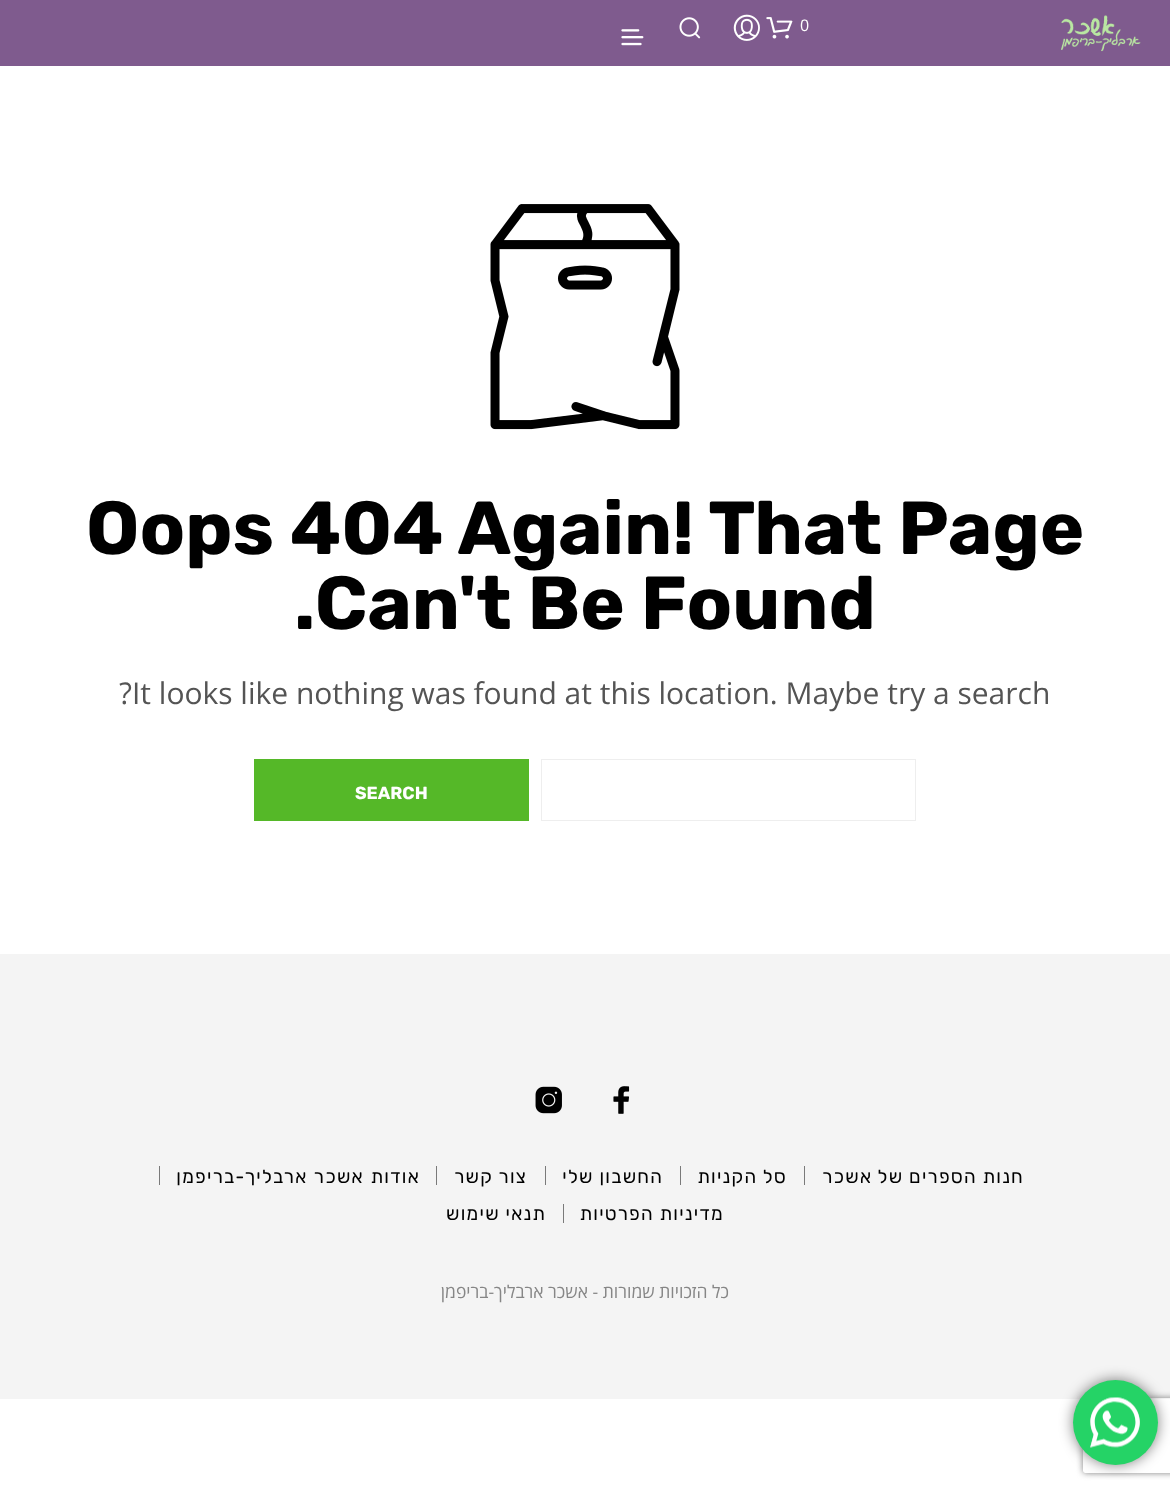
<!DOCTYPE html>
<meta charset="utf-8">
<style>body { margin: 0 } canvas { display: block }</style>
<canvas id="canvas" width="1170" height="1489"></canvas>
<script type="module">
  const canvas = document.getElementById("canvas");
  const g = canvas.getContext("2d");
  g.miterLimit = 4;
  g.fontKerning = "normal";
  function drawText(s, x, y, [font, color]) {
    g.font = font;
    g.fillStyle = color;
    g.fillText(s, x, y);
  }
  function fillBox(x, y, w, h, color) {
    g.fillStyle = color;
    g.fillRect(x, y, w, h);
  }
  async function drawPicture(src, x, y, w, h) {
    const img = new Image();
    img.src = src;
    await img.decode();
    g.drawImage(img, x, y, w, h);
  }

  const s1 = ["16px Open Sans", "#FFFFFF"];
  const s2 = ["bold 75px Rubik", "#000000"];
  const s3 = ["30px Open Sans", "#545454"];
  const s4 = ["bold 17.5px Rubik", "#FFFFFF"];
  const s5 = ["18.75px Rubik", "#000000"];
  const s6 = ["17.5px Open Sans", "#868686"];

  fillBox(0, 0, 1170, 1489, "#FFFFFF");
  fillBox(0, 0, 1170, 66, "#7F5B8E");
  await drawPicture("pic1.png", 1061, 15, 80, 37);
  drawText("0", 800, 31, s1);
  await drawPicture("pic2.png", 766, 17, 27, 22);
  await drawPicture("pic3.png", 733, 14, 27, 27);
  await drawPicture("pic4.png", 679, 17, 22, 22);
  await drawPicture("pic5.png", 621, 29, 23, 17);
  await drawPicture("pic6.png", 490, 204, 190, 226);
  drawText("Oops 404 Again! That Page", 86, 554, s2);
  drawText(".Can't Be Found", 294, 629, s2);
  drawText("?It looks like nothing was found at this location. Maybe try a search", 119, 704, s3);
  g.strokeStyle = "#EEEEEE";
  g.strokeRect(541.5, 759.5, 374, 61);
  fillBox(254, 759, 275, 62, "#55B828");
  drawText("SEARCH", 355, 799, s4);
  fillBox(0, 954, 1170, 445, "#F4F4F4");
  await drawPicture("pic7.png", 613, 1086, 17, 28);
  await drawPicture("pic8.png", 535, 1086, 27, 28);
  g.letterSpacing = "1.25px";
  g.direction = "rtl";
  drawText("חנות הספרים של אשכר", 1024, 1183, s5);
  fillBox(804, 1166, 1, 19, "#7A7A7A");
  drawText("סל הקניות", 787, 1183, s5);
  fillBox(680, 1166, 1, 19, "#7A7A7A");
  drawText("החשבון שלי", 663, 1183, s5);
  fillBox(545, 1166, 1, 19, "#7A7A7A");
  drawText("צור קשר", 527, 1183, s5);
  fillBox(436, 1166, 1, 19, "#7A7A7A");
  g.wordSpacing = "1px";
  drawText("אודות אשכר ארבליך-בריפמן", 420, 1183, s5);
  fillBox(159, 1166, 1, 19, "#7A7A7A");
  g.wordSpacing = "0px";
  drawText("מדיניות הפרטיות", 724, 1220, s5);
  fillBox(563, 1204, 1, 19, "#7A7A7A");
  drawText("תנאי שימוש", 546, 1220, s5);
  g.letterSpacing = "0px";
  drawText("כל הזכויות שמורות - אשכר ארבליך-בריפמן", 729, 1298, s6);
  g.fillStyle = "rgba(0, 0, 0, 0.5)";
  g.filter = "blur(7px)";
  g.beginPath();
  g.roundRect(1073, 1380, 85, 85, 42.5);
  g.fill();
  g.filter = "none";
  g.save();
  g.beginPath();
  g.moveTo(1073, 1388);
  g.lineTo(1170, 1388);
  g.lineTo(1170, 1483);
  g.lineTo(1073, 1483);
  g.closePath();
  g.moveTo(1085.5, 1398);
  g.lineTo(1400.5, 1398);
  g.bezierCurveTo(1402, 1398, 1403, 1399, 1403, 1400.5);
  g.lineTo(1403, 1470.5);
  g.bezierCurveTo(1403, 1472, 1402, 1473, 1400.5, 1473);
  g.lineTo(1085.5, 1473);
  g.bezierCurveTo(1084, 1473, 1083, 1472, 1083, 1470.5);
  g.lineTo(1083, 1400.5);
  g.bezierCurveTo(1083, 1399, 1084, 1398, 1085.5, 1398);
  g.closePath();
  g.clip("evenodd");
  g.fillStyle = "#808080";
  g.filter = "blur(3px)";
  g.beginPath();
  g.roundRect(1083, 1398, 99, 75, 2.5);
  g.fill();
  g.filter = "none";
  g.restore();
  g.fillStyle = "#25D366";
  g.beginPath();
  g.arc(1115.5, 1422.5, 42.5, 0, Math.PI * 2);
  g.fill();
  await drawPicture("pic9.png", 1090, 1397, 50, 51);
</script>
